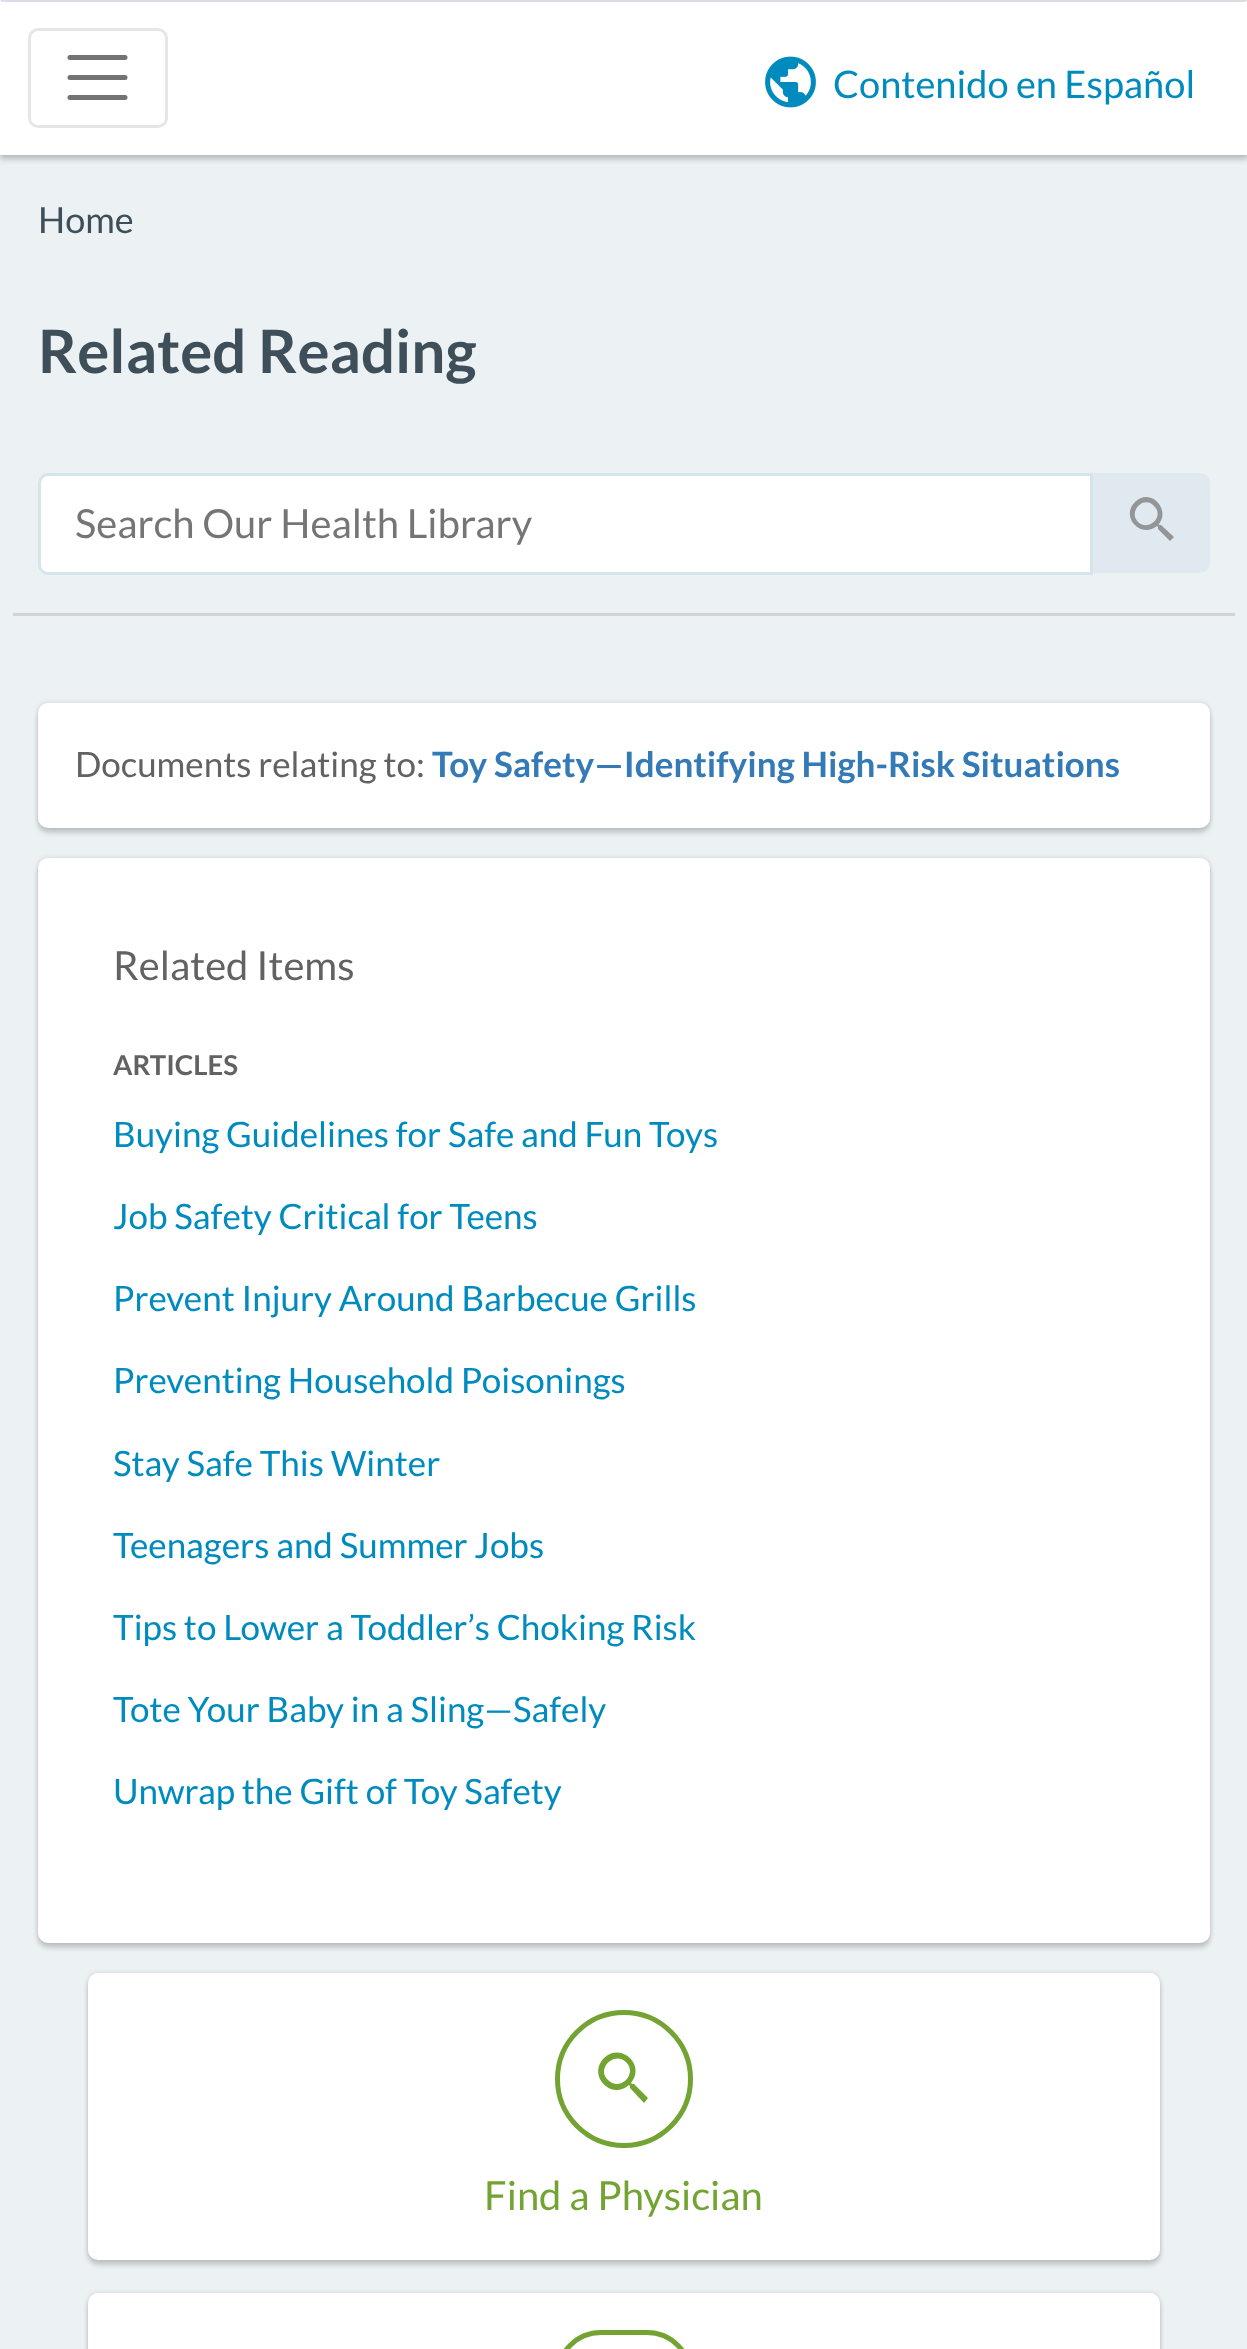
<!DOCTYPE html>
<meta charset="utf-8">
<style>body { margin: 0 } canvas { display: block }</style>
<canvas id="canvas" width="1247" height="2349"></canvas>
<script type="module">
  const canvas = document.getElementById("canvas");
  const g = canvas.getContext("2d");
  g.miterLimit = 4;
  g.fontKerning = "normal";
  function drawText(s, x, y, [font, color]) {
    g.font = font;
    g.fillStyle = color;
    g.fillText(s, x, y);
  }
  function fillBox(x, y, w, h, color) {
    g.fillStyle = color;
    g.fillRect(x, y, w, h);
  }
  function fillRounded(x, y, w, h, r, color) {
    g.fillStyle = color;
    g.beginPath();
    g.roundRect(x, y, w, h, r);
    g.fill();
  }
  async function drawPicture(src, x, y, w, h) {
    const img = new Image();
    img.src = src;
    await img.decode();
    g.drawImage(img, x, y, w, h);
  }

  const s1 = ["38px Lato", "#008BBF"];
  const s2 = ["36px Lato", "#3E4F5A"];
  const s3 = ["bold 60px Lato", "#3E4F5A"];
  const s4 = ["40px Lato", "#757575"];
  const s5 = ["35px Lato", "#626262"];
  const s6 = ["bold 35px Lato", "#337AB7"];
  const s7 = ["40px Lato", "#626262"];
  const s8 = ["bold 27.5px Lato", "#626262"];
  const s9 = ["35px Lato", "#008BBF"];
  const s10 = ["40px Lato", "#73A333"];

  fillBox(0, 0, 1247, 2349, "#ECF1F4");
  g.fillStyle = "rgba(0, 0, 0, 0.12)";
  g.filter = "blur(2.5px)";
  g.beginPath();
  g.rect(0, 0, 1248, 155);
  g.fill();
  g.filter = "none";
  g.fillStyle = "rgba(0, 0, 0, 0.16)";
  g.filter = "blur(2.5px)";
  g.beginPath();
  g.rect(0, 5, 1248, 155);
  g.fill();
  g.filter = "none";
  fillBox(0, 0, 1247, 155, "#FFFFFF");
  g.fillStyle = "#D9DDE4";
  g.beginPath();
  g.moveTo(0, 0);
  g.lineTo(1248, 0);
  g.lineTo(1245, 2);
  g.lineTo(2, 2);
  g.closePath();
  g.fill();
  g.beginPath();
  g.roundRect(29.5, 29.5, 137, 97, 8.5);
  g.strokeStyle = "#E6E6E6";
  g.lineWidth = 3;
  g.stroke();
  g.beginPath();
  g.moveTo(70, 57.5);
  g.lineTo(125, 57.5);
  g.moveTo(70, 77.5);
  g.lineTo(125, 77.5);
  g.moveTo(70, 97.5);
  g.lineTo(125, 97.5);
  g.strokeStyle = "#737373";
  g.lineWidth = 5;
  g.lineCap = "round";
  g.stroke();
  await drawPicture("pic1.png", 765, 56, 51, 52);
  drawText("Contenido en Español", 833, 98, s1);
  drawText("Home", 38, 233, s2);
  fillBox(13, 613, 1222, 3, "#D0D4D7");
  drawText("Related Reading", 38, 373, s3);
  g.fillStyle = "#FFFFFF";
  g.beginPath();
  g.roundRect(39.5, 474.5, 1052, 99, [8.5, 0, 0, 8.5]);
  g.fill();
  g.strokeStyle = "#D6E4EB";
  g.lineWidth = 3;
  g.stroke();
  drawText("Search Our Health Library", 75, 538, s4);
  g.fillStyle = "#DFE9EF";
  g.beginPath();
  g.roundRect(1093, 473, 117, 100, [0, 10, 10, 0]);
  g.fill();
  g.fillStyle = "#939596";
  g.beginPath();
  g.moveTo(1138, 522);
  g.bezierCurveTo(1149, 532, 1165, 516, 1154, 506);
  g.bezierCurveTo(1144, 495, 1128, 511, 1138, 522);
  g.closePath();
  g.moveTo(1161, 525);
  g.lineTo(1174, 537);
  g.lineTo(1170, 541);
  g.lineTo(1158, 529);
  g.lineTo(1158, 527);
  g.lineTo(1157, 526);
  g.bezierCurveTo(1141, 539, 1120, 517, 1135, 502);
  g.bezierCurveTo(1150, 487, 1171, 509, 1159, 524);
  g.lineTo(1159, 525);
  g.closePath();
  g.fill();
  g.fillStyle = "rgba(0, 0, 0, 0.12)";
  g.filter = "blur(2.5px)";
  g.beginPath();
  g.roundRect(38, 703, 1172, 125, 10);
  g.fill();
  g.filter = "none";
  g.fillStyle = "rgba(0, 0, 0, 0.16)";
  g.filter = "blur(2.5px)";
  g.beginPath();
  g.roundRect(38, 708, 1172, 125, 10);
  g.fill();
  g.filter = "none";
  fillRounded(38, 703, 1172, 125, 10, "#FFFFFF");
  drawText("Documents relating to:", 75, 777, s5);
  drawText("Toy Safety—Identifying High-Risk Situations", 432, 777, s6);
  g.fillStyle = "rgba(0, 0, 0, 0.12)";
  g.filter = "blur(2.5px)";
  g.beginPath();
  g.roundRect(38, 858, 1172, 1085, 10);
  g.fill();
  g.filter = "none";
  g.fillStyle = "rgba(0, 0, 0, 0.16)";
  g.filter = "blur(2.5px)";
  g.beginPath();
  g.roundRect(38, 863, 1172, 1085, 10);
  g.fill();
  g.filter = "none";
  fillRounded(38, 858, 1172, 1085, 10, "#FFFFFF");
  drawText("Related Items", 113, 980, s7);
  drawText("ARTICLES", 113, 1075, s8);
  drawText("Buying Guidelines for Safe and Fun Toys", 113, 1147, s9);
  drawText("Job Safety Critical for Teens", 113, 1229, s9);
  drawText("Prevent Injury Around Barbecue Grills", 113, 1311, s9);
  drawText("Preventing Household Poisonings", 113, 1393, s9);
  drawText("Stay Safe This Winter", 113, 1476, s9);
  drawText("Teenagers and Summer Jobs", 113, 1558, s9);
  drawText("Tips to Lower a Toddler’s Choking Risk", 113, 1640, s9);
  drawText("Tote Your Baby in a Sling—Safely", 113, 1722, s9);
  drawText("Unwrap the Gift of Toy Safety", 113, 1804, s9);
  g.fillStyle = "rgba(0, 0, 0, 0.12)";
  g.filter = "blur(2.5px)";
  g.beginPath();
  g.roundRect(88, 1973, 1072, 287, 10);
  g.fill();
  g.filter = "none";
  g.fillStyle = "rgba(0, 0, 0, 0.16)";
  g.filter = "blur(2.5px)";
  g.beginPath();
  g.roundRect(88, 1978, 1072, 287, 10);
  g.fill();
  g.filter = "none";
  fillRounded(88, 1973, 1072, 287, 10, "#FFFFFF");
  g.beginPath();
  g.arc(624, 2079, 66.5, 0, Math.PI * 2);
  g.strokeStyle = "#73A333";
  g.lineWidth = 5;
  g.stroke();
  g.fillStyle = "#73A333";
  g.beginPath();
  g.moveTo(608, 2080);
  g.bezierCurveTo(620, 2092, 638, 2074, 626, 2062);
  g.bezierCurveTo(614, 2051, 596, 2069, 608, 2080);
  g.closePath();
  g.moveTo(634, 2084);
  g.lineTo(648, 2098);
  g.lineTo(644, 2103);
  g.lineTo(630, 2088);
  g.lineTo(630, 2086);
  g.lineTo(629, 2085);
  g.bezierCurveTo(611, 2101, 587, 2075, 604, 2058);
  g.bezierCurveTo(621, 2042, 646, 2065, 631, 2083);
  g.lineTo(632, 2084);
  g.closePath();
  g.fill();
  drawText("Find a Physician", 484, 2210, s10);
  g.fillStyle = "rgba(0, 0, 0, 0.12)";
  g.filter = "blur(2.5px)";
  g.beginPath();
  g.roundRect(88, 2293, 1072, 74, 10);
  g.fill();
  g.filter = "none";
  g.fillStyle = "rgba(0, 0, 0, 0.16)";
  g.filter = "blur(2.5px)";
  g.beginPath();
  g.roundRect(88, 2298, 1072, 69, 10);
  g.fill();
  g.filter = "none";
  fillRounded(88, 2293, 1072, 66, 10, "#FFFFFF");
  g.beginPath();
  g.roundRect(557.5, 2332.5, 133, 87, 65);
  g.stroke();
</script>
